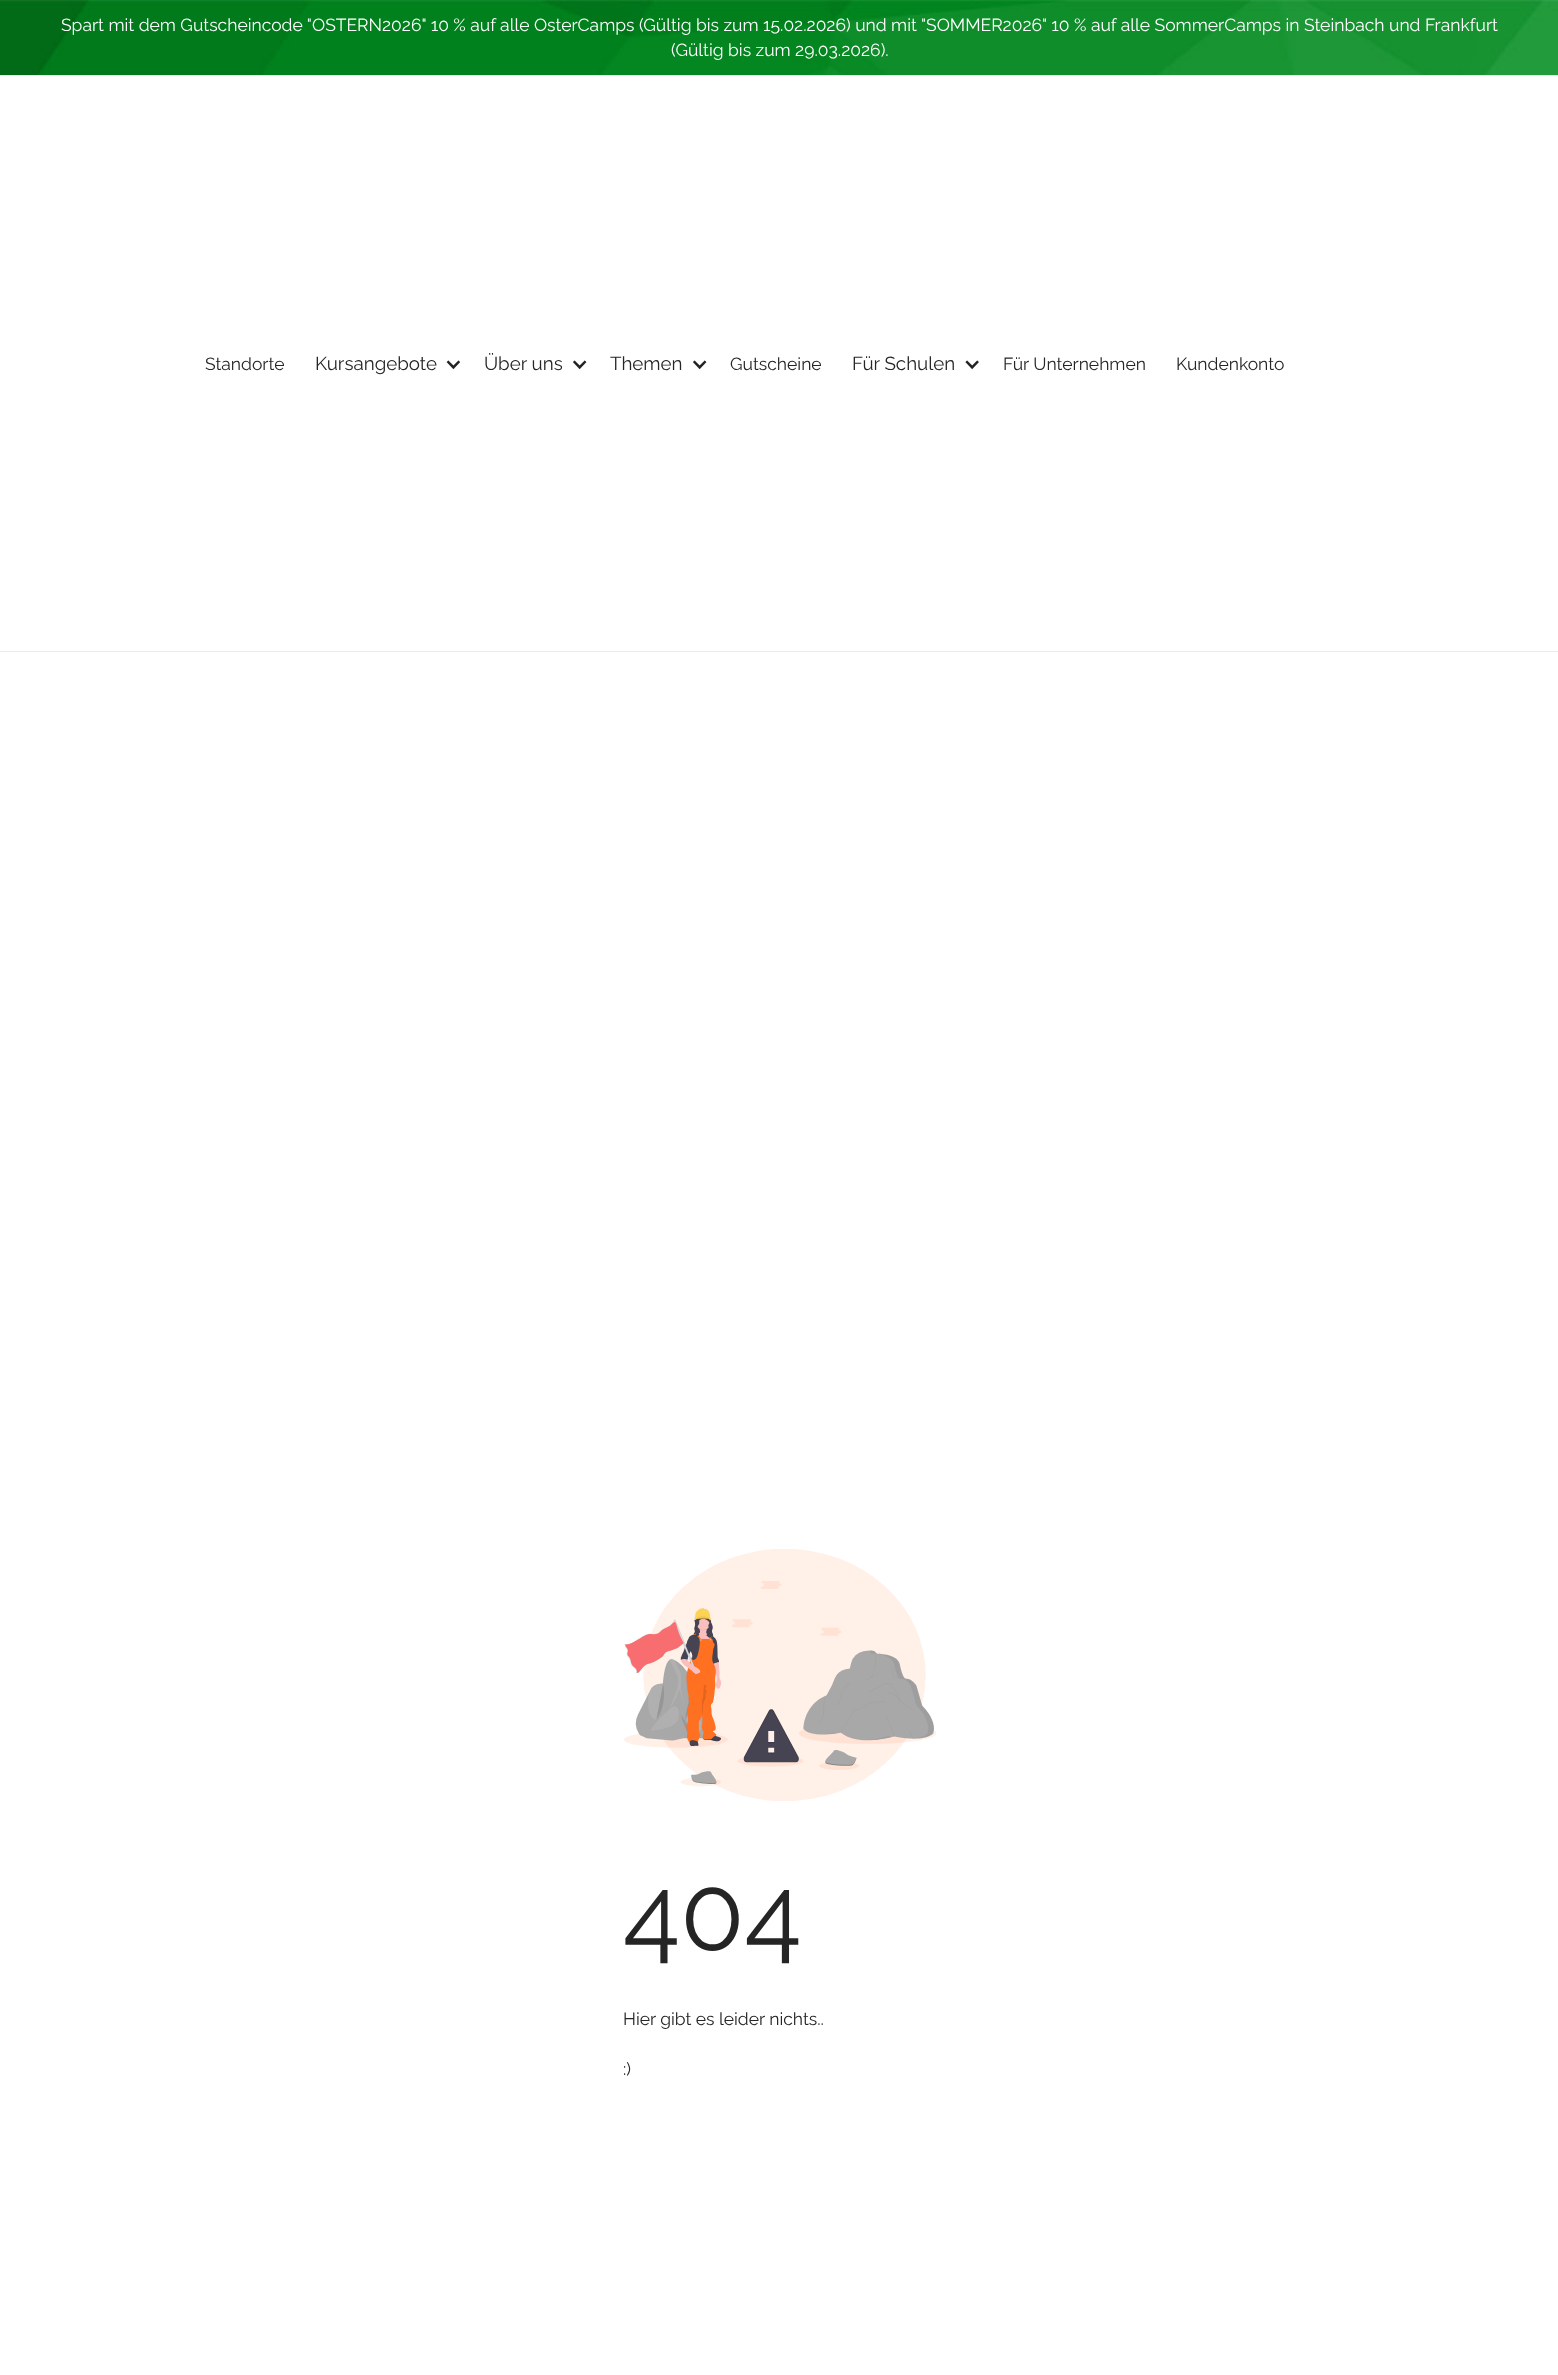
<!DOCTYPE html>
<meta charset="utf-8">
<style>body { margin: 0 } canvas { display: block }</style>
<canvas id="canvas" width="1558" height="2375"></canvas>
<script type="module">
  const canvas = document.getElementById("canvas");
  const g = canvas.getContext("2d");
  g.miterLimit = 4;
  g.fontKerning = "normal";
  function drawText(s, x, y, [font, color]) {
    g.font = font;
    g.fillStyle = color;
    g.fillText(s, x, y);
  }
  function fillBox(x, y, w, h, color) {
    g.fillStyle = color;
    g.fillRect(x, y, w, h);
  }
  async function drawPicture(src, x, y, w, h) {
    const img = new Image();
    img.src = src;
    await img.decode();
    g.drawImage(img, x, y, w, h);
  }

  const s1 = ["17.5px Raleway", "#FFFFFF"];
  const s2 = ["17.5px Raleway", "#252525"];
  const s3 = ["18.75px Raleway", "#252525"];
  const s4 = ["105px Raleway", "#252525"];

  fillBox(0, 0, 1558, 2375, "#FFFFFF");
  await drawPicture("pic1.png", 0, 0, 1558, 75);
  drawText("Spart mit dem Gutscheincode \"OSTERN2026\" 10 % auf alle OsterCamps (Gültig bis zum 15.02.2026) und mit \"SOMMER2026\" 10 % auf alle SommerCamps in Steinbach und Frankfurt", 61, 31, s1);
  drawText("(Gültig bis zum 29.03.2026).", 671, 56, s1);
  fillBox(0, 75, 1558, 1, "#EAECEE");
  fillBox(0, 651, 1558, 1, "#EAECEE");
  drawText("Standorte", 205, 370, s2);
  drawText("Kursangebote", 315, 370, s3);
  await drawPicture("pic2.png", 446, 360, 15, 10);
  drawText("Über uns", 484, 370, s3);
  await drawPicture("pic3.png", 573, 360, 14, 10);
  drawText("Themen", 610, 370, s3);
  await drawPicture("pic3.png", 693, 360, 14, 10);
  drawText("Gutscheine", 730, 370, s2);
  drawText("Für Schulen", 852, 370, s3);
  await drawPicture("pic4.png", 965, 360, 14, 10);
  drawText("Für Unternehmen", 1003, 370, s2);
  drawText("Kundenkonto", 1176, 370, s2);
  await drawPicture("pic5.png", 624, 1549, 312, 252);
  drawText("404", 623, 1950, s4);
  drawText("Hier gibt es leider nichts..", 623, 2025, s2);
  drawText(":)", 623, 2075, s2);
</script>
